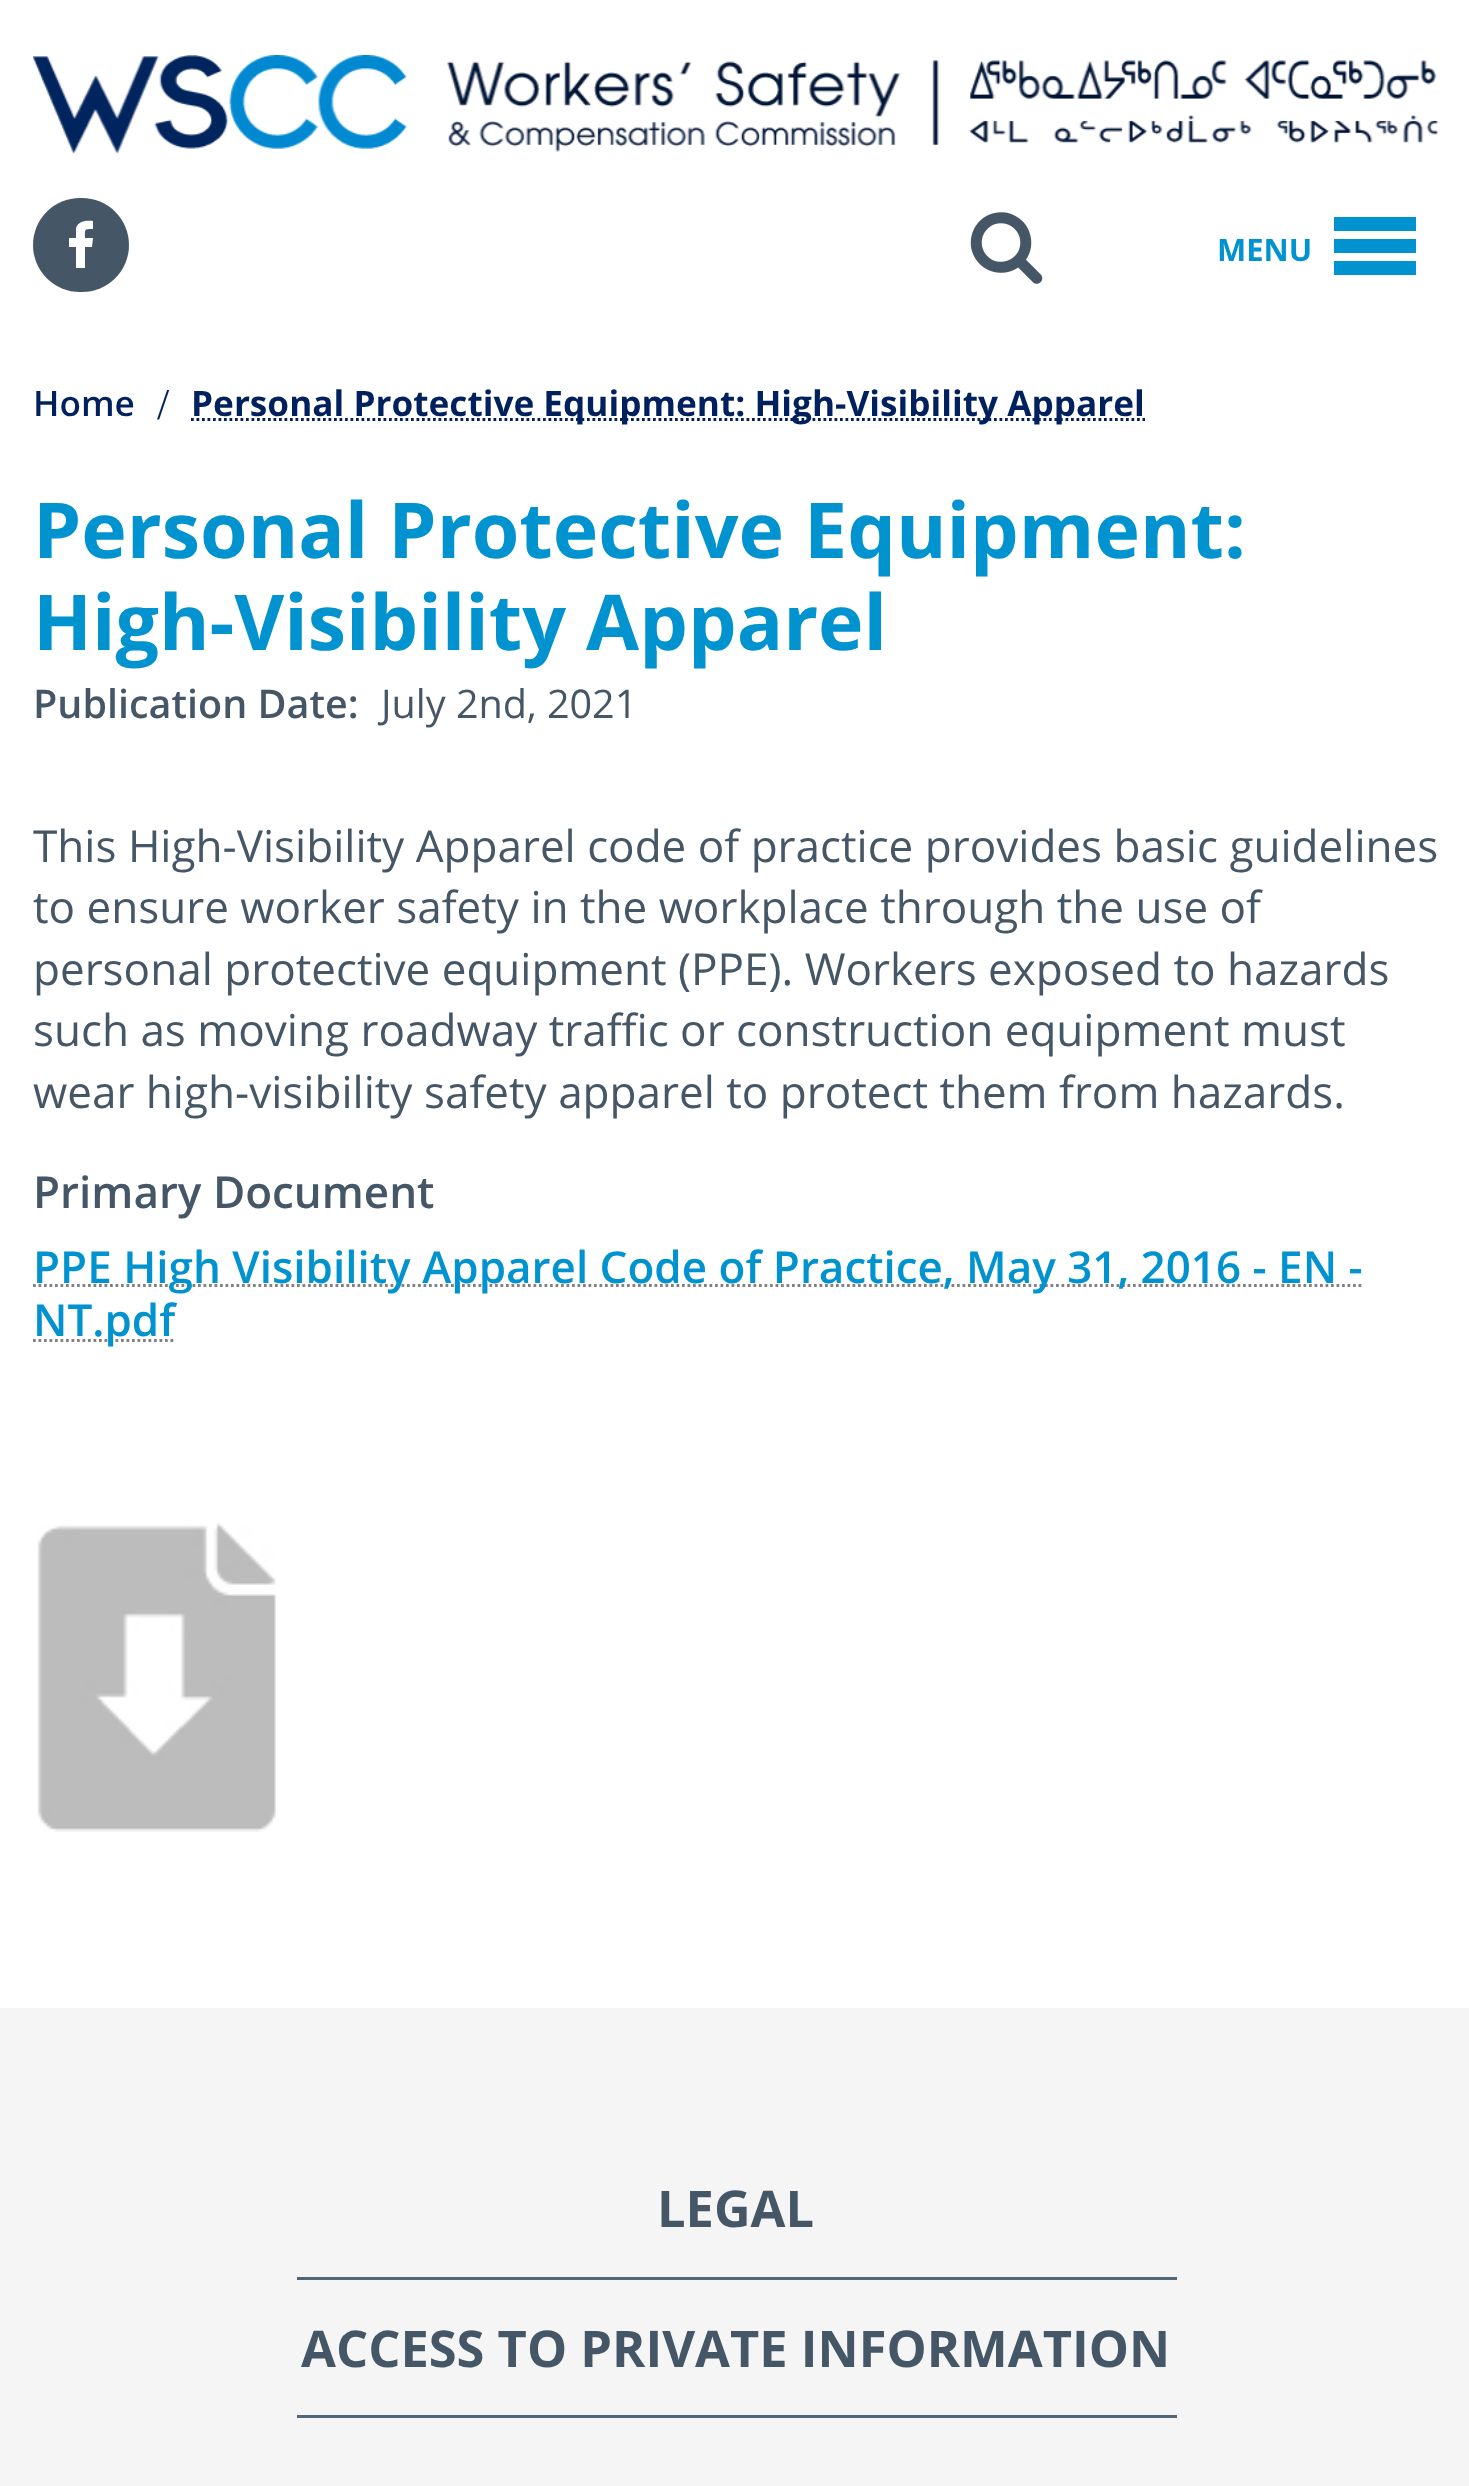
<!DOCTYPE html>
<meta charset="utf-8">
<style>body { margin: 0 } canvas { display: block }</style>
<canvas id="canvas" width="1469" height="2486"></canvas>
<script type="module">
  const canvas = document.getElementById("canvas");
  const g = canvas.getContext("2d");
  g.miterLimit = 4;
  g.fontKerning = "normal";
  function drawText(s, x, y, [font, color]) {
    g.font = font;
    g.fillStyle = color;
    g.fillText(s, x, y);
  }
  function fillBox(x, y, w, h, color) {
    g.fillStyle = color;
    g.fillRect(x, y, w, h);
  }
  function fillRounded(x, y, w, h, r, color) {
    g.fillStyle = color;
    g.beginPath();
    g.roundRect(x, y, w, h, r);
    g.fill();
  }
  async function drawPicture(src, x, y, w, h) {
    const img = new Image();
    img.src = src;
    await img.decode();
    g.drawImage(img, x, y, w, h);
  }

  const s1 = ["bold 31px Open Sans", "#0093D0"];
  const s2 = ["600 35.2px Open Sans", "#00215D"];
  const s3 = ["44px Liberation Serif", "#00215D"];
  const s4 = ["bold 35.2px Open Sans", "#00215D"];
  const s5 = ["bold 77px Open Sans", "#0093D0"];
  const s6 = ["600 39.5px Open Sans", "#455767"];
  const s7 = ["39.5px Open Sans", "#455767"];
  const s8 = ["44px Open Sans", "#455767"];
  const s9 = ["600 44px Open Sans", "#455767"];
  const s10 = ["600 44px Open Sans", "#0093D0"];
  const s11 = ["bold 50.6px Open Sans", "#455767"];

  fillBox(0, 0, 1469, 2486, "#FFFFFF");
  await drawPicture("pic1.png", 33, 55, 1405, 99);
  fillRounded(33, 198, 96, 94, 47, "#455767");
  g.fillStyle = "#FFFFFF";
  g.beginPath();
  g.moveTo(93, 221);
  g.lineTo(93, 229);
  g.bezierCurveTo(84, 229, 85, 229, 85, 238);
  g.lineTo(93, 238);
  g.lineTo(92, 247);
  g.lineTo(85, 247);
  g.lineTo(85, 268);
  g.lineTo(76, 268);
  g.lineTo(76, 247);
  g.lineTo(69, 247);
  g.lineTo(69, 238);
  g.lineTo(76, 238);
  g.lineTo(76, 228);
  g.bezierCurveTo(78, 221, 87, 220, 93, 221);
  g.closePath();
  g.fill();
  await drawPicture("pic2.png", 970, 212, 73, 72);
  drawText("MENU", 1217, 261, s1);
  fillBox(1334, 239, 82, 14, "#0093D0");
  fillBox(1334, 217, 82, 14, "#0093D0");
  fillBox(1334, 261, 82, 14, "#0093D0");
  drawText("Home", 33, 416, s2);
  drawText("/", 157, 419, s3);
  g.beginPath();
  g.moveTo(191, 419.5);
  g.lineTo(1145, 419.5);
  g.strokeStyle = "#00215D";
  g.lineWidth = 2.8;
  g.setLineDash([2.75, 2.75]);
  g.stroke();
  drawText("Personal Protective Equipment: High-Visibility Apparel", 191, 416, s4);
  drawText("Personal Protective Equipment:", 33, 558, s5);
  drawText("High-Visibility Apparel", 33, 650, s5);
  drawText("Publication Date:", 33, 718, s6);
  drawText("July 2nd, 2021", 381, 718, s7);
  drawText("This High-Visibility Apparel code of practice provides basic guidelines", 33, 862, s8);
  drawText("to ensure worker safety in the workplace through the use of", 33, 923, s8);
  drawText("personal protective equipment (PPE). Workers exposed to hazards", 33, 985, s8);
  drawText("such as moving roadway traffic or construction equipment must", 33, 1046, s8);
  drawText("wear high-visibility safety apparel to protect them from hazards.", 33, 1108, s8);
  drawText("Primary Document", 33, 1208, s9);
  g.beginPath();
  g.moveTo(33, 1285.5);
  g.lineTo(1362.5, 1285.5);
  g.strokeStyle = "#818181";
  g.stroke();
  drawText("PPE High Visibility Apparel Code of Practice, May 31, 2016 - EN -", 33, 1283, s10);
  g.beginPath();
  g.moveTo(33, 1340.5);
  g.lineTo(175.5, 1340.5);
  g.stroke();
  drawText("NT.pdf", 33, 1336, s10);
  await drawPicture("pic3.png", 37, 1523, 239, 309);
  fillBox(0, 2008, 1469, 478, "#F5F5F5");
  fillBox(297, 2277, 880, 3, "#506578");
  drawText("LEGAL", 657, 2227, s11);
  fillBox(297, 2415, 880, 3, "#506578");
  drawText("ACCESS TO PRIVATE INFORMATION", 301, 2367, s11);
</script>
